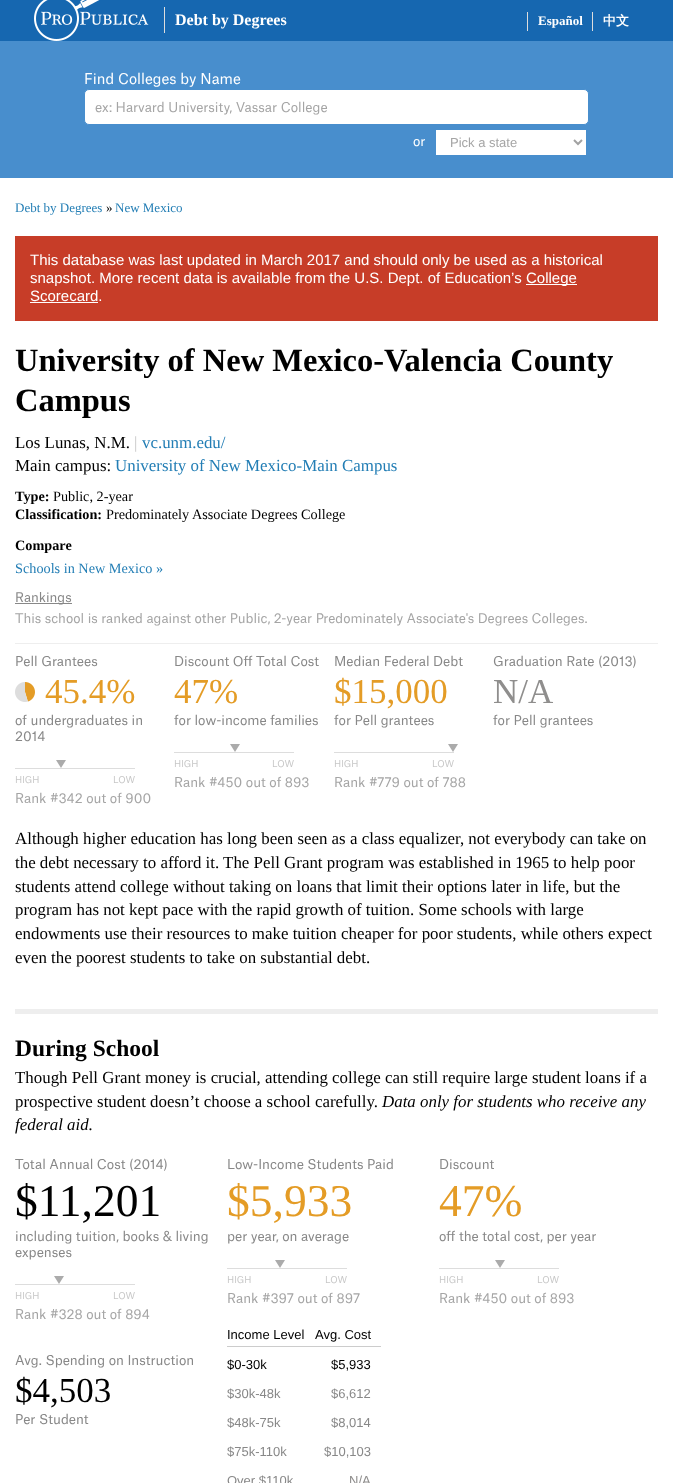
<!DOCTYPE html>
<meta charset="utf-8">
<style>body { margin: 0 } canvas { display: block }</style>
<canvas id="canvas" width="673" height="1483"></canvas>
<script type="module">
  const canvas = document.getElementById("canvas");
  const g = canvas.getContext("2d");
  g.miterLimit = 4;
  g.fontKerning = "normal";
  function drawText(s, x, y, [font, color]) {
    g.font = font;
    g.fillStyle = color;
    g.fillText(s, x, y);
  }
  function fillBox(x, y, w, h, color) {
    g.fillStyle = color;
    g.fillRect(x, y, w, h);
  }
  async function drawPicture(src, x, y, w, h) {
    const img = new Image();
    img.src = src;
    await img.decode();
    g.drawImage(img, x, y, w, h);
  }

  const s1 = ["bold 16px Liberation Serif", "#FFFFFF"];
  const s2 = ["bold 13px Liberation Serif", "#FFFFFF"];
  const s3 = ["bold 13px WenQuanYi Zen Hei", "#FFFFFF"];
  const s4 = ["14.25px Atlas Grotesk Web", "#FFFFFF"];
  const s5 = ["13px Atlas Grotesk Web", "#A5A5A5"];
  const s6 = ["13px Atlas Grotesk Web", "#FFFFFF"];
  const s7 = ["13px Liberation Sans", "#A5A5A5"];
  const s8 = ["13px Liberation Serif", "#237EB5"];
  const s9 = ["13px Liberation Serif", "#000000"];
  const s10 = ["15px Liberation Sans", "#FFFFFF"];
  const s11 = ["bold 32.5px Liberation Serif", "#000000"];
  const s12 = ["16.9px Liberation Serif", "#000000"];
  const s13 = ["16.9px Liberation Serif", "#C7C7C7"];
  const s14 = ["16.9px Liberation Serif", "#237EB5"];
  const s15 = ["bold 14.25px Liberation Serif", "#000000"];
  const s16 = ["14.25px Liberation Serif", "#000000"];
  const s17 = ["14.25px Liberation Serif", "#237EB5"];
  const s18 = ["12.85px Atlas Grotesk Web", "#888888"];
  const s19 = ["12.85px Atlas Grotesk Web", "#A5A5A5"];
  const s20 = ["13px Atlas Grotesk Web", "#888888"];
  const s21 = ["35px Liberation Serif", "#E49C26"];
  const s22 = ["9px Atlas Grotesk Web", "#C7C7C7"];
  const s23 = ["35px Liberation Serif", "#8F8E8D"];
  const s24 = ["bold 23.5px Liberation Serif", "#000000"];
  const s25 = ["italic 16.9px Liberation Serif", "#000000"];
  const s26 = ["45.5px Liberation Serif", "#000000"];
  const s27 = ["35px Liberation Serif", "#000000"];
  const s28 = ["45.5px Liberation Serif", "#E49C26"];
  const s29 = ["13px Liberation Sans", "#000000"];
  const s30 = ["13px Liberation Sans", "#888888"];
  const s31 = ["13px Liberation Sans", "#8F8E8D"];

  fillBox(0, 0, 673, 1483, "#1667B0");
  await drawPicture("pic1.png", 34, 0, 115, 41);
  fillBox(164, 7, 1, 26, "#DDDDDD");
  drawText("Debt by Degrees", 175, 25, s1);
  fillBox(527, 12, 1, 19, "#DDDDDD");
  drawText("Español", 538, 25, s2);
  fillBox(592, 12, 1, 19, "#DDDDDD");
  drawText("中文", 603, 25, s3);
  fillBox(0, 41, 673, 137, "#488ECD");
  drawText("Find Colleges by Name", 84, 84, s4);
  g.beginPath();
  g.roundRect(84.5, 89.5, 504, 35, 4.5);
  g.fill();
  g.strokeStyle = "#488ECD";
  g.stroke();
  drawText("ex: Harvard University, Vassar College", 95, 112, s5);
  drawText("or", 413, 146, s6);
  fillBox(436, 130, 150, 25, "#FFFFFF");
  g.beginPath();
  g.moveTo(574, 140);
  g.lineTo(578, 144);
  g.lineTo(582, 140);
  g.strokeStyle = "#A2A2A2";
  g.lineWidth = 2;
  g.stroke();
  drawText("Pick a state", 450, 147, s7);
  fillBox(0, 178, 673, 1305, "#FFFFFF");
  drawText("Debt by Degrees", 15, 212, s8);
  drawText("»", 106, 212, s9);
  drawText("New Mexico", 115, 212, s8);
  fillBox(15, 236, 643, 85, "#C73D28");
  drawText("This database was last updated in March 2017 and should only be used as a historical", 30, 265, s10);
  drawText("snapshot. More recent data is available from the U.S. Dept. of Education’s", 30, 283, s10);
  fillBox(526, 284, 51, 1, "#FFFFFF");
  drawText("College", 526, 283, s10);
  drawText("Scorecard.", 30, 301, s10);
  fillBox(30, 302, 68, 1, "#FFFFFF");
  drawText("University of New Mexico-Valencia County", 15, 371, s11);
  drawText("Campus", 15, 411, s11);
  drawText("Los Lunas, N.M.", 15, 448, s12);
  drawText("|", 134, 448, s13);
  drawText("vc.unm.edu/", 142, 448, s14);
  drawText("Main campus:", 15, 471, s12);
  drawText("University of New Mexico-Main Campus", 115, 471, s14);
  fillBox(15, 643, 643, 1, "#EEEEEE");
  drawText("Type:", 15, 501, s15);
  drawText("Public, 2-year", 53, 501, s16);
  drawText("Classification:", 15, 519, s15);
  drawText("Predominately Associate Degrees College", 106, 519, s16);
  drawText("Compare", 15, 550, s15);
  drawText("Schools in New Mexico »", 15, 573, s17);
  fillBox(15, 603, 57, 1, "#888888");
  drawText("Rankings", 15, 602, s18);
  drawText("This school is ranked against other Public, 2-year Predominately Associate's Degrees Colleges.", 15, 623, s19);
  drawText("Pell Grantees", 15, 666, s20);
  await drawPicture("pic2.png", 15, 682, 20, 20);
  drawText("45.4%", 45, 703, s21);
  drawText("of undergraduates in", 15, 725, s20);
  drawText("2014", 15, 741, s20);
  g.fillStyle = "#ABABAB";
  g.beginPath();
  g.moveTo(56, 760);
  g.lineTo(66, 760);
  g.lineTo(61, 768);
  g.closePath();
  g.fill();
  fillBox(15, 768, 120, 1, "#DDDDDD");
  drawText("HIGH", 15, 783, s22);
  drawText("LOW", 113, 783, s22);
  drawText("Rank #342 out of 900", 15, 803, s5);
  drawText("Discount Off Total Cost", 174, 666, s20);
  drawText("47%", 174, 703, s21);
  drawText("for low-income families", 174, 725, s20);
  g.fillStyle = "#ABABAB";
  g.beginPath();
  g.moveTo(230, 744);
  g.lineTo(240, 744);
  g.lineTo(235, 752);
  g.closePath();
  g.fill();
  fillBox(174, 752, 120, 1, "#DDDDDD");
  drawText("HIGH", 174, 767, s22);
  drawText("LOW", 272, 767, s22);
  drawText("Rank #450 out of 893", 174, 787, s5);
  drawText("Median Federal Debt", 334, 666, s20);
  drawText("$15,000", 334, 703, s21);
  drawText("for Pell grantees", 334, 725, s20);
  g.fillStyle = "#ABABAB";
  g.beginPath();
  g.moveTo(448, 744);
  g.lineTo(458, 744);
  g.lineTo(453, 752);
  g.closePath();
  g.fill();
  fillBox(334, 752, 120, 1, "#DDDDDD");
  drawText("HIGH", 334, 767, s22);
  drawText("LOW", 432, 767, s22);
  drawText("Rank #779 out of 788", 334, 787, s5);
  drawText("Graduation Rate (2013)", 493, 666, s20);
  drawText("N/A", 493, 703, s23);
  drawText("for Pell grantees", 493, 725, s20);
  drawText("Although higher education has long been seen as a class equalizer, not everybody can take on", 15, 844, s12);
  drawText("the debt necessary to afford it. The Pell Grant program was established in 1965 to help poor", 15, 868, s12);
  drawText("students attend college without taking on loans that limit their options later in life, but the", 15, 892, s12);
  drawText("program has not kept pace with the rapid growth of tuition. Some schools with large", 15, 915, s12);
  drawText("endowments use their resources to make tuition cheaper for poor students, while others expect", 15, 939, s12);
  drawText("even the poorest students to take on substantial debt.", 15, 963, s12);
  fillBox(15, 1009, 643, 5, "#EEEEEE");
  drawText("During School", 15, 1056, s24);
  drawText("Though Pell Grant money is crucial, attending college can still require large student loans if a", 15, 1083, s12);
  drawText("prospective student doesn’t choose a school carefully.", 15, 1107, s12);
  drawText("Data only for students who receive any", 382, 1107, s25);
  drawText("federal aid.", 15, 1130, s25);
  drawText("Total Annual Cost (2014)", 15, 1169, s20);
  drawText("$11,201", 15, 1216, s26);
  drawText("including tuition, books & living", 15, 1241, s20);
  drawText("expenses", 15, 1257, s20);
  g.fillStyle = "#ABABAB";
  g.beginPath();
  g.moveTo(54, 1276);
  g.lineTo(64, 1276);
  g.lineTo(59, 1284);
  g.closePath();
  g.fill();
  fillBox(15, 1284, 120, 1, "#DDDDDD");
  drawText("HIGH", 15, 1299, s22);
  drawText("LOW", 113, 1299, s22);
  drawText("Rank #328 out of 894", 15, 1319, s5);
  drawText("Avg. Spending on Instruction", 15, 1365, s20);
  drawText("$4,503", 15, 1402, s27);
  drawText("Per Student", 15, 1424, s20);
  drawText("Low-Income Students Paid", 227, 1169, s20);
  drawText("$5,933", 227, 1216, s28);
  drawText("per year, on average", 227, 1241, s20);
  g.fillStyle = "#ABABAB";
  g.beginPath();
  g.moveTo(275, 1260);
  g.lineTo(285, 1260);
  g.lineTo(280, 1268);
  g.closePath();
  g.fill();
  fillBox(227, 1268, 120, 1, "#DDDDDD");
  drawText("HIGH", 227, 1283, s22);
  drawText("LOW", 325, 1283, s22);
  drawText("Rank #397 out of 897", 227, 1303, s5);
  drawText("Income Level", 227, 1339, s29);
  fillBox(227, 1346, 154, 1, "#CCCCCC");
  drawText("Avg. Cost", 315, 1339, s29);
  drawText("$0-30k", 227, 1369, s29);
  drawText("$5,933", 331, 1369, s29);
  drawText("$30k-48k", 227, 1398, s30);
  drawText("$6,612", 331, 1398, s30);
  drawText("$48k-75k", 227, 1427, s30);
  drawText("$8,014", 331, 1427, s30);
  drawText("$75k-110k", 227, 1456, s30);
  drawText("$10,103", 324, 1456, s30);
  drawText("Over $110k", 227, 1485, s30);
  drawText("N/A", 349, 1485, s31);
  drawText("Discount", 439, 1169, s20);
  drawText("47%", 439, 1216, s28);
  drawText("off the total cost, per year", 439, 1241, s20);
  g.fillStyle = "#ABABAB";
  g.beginPath();
  g.moveTo(495, 1260);
  g.lineTo(505, 1260);
  g.lineTo(500, 1268);
  g.closePath();
  g.fill();
  fillBox(439, 1268, 120, 1, "#DDDDDD");
  drawText("HIGH", 439, 1283, s22);
  drawText("LOW", 537, 1283, s22);
  drawText("Rank #450 out of 893", 439, 1303, s5);
</script>
